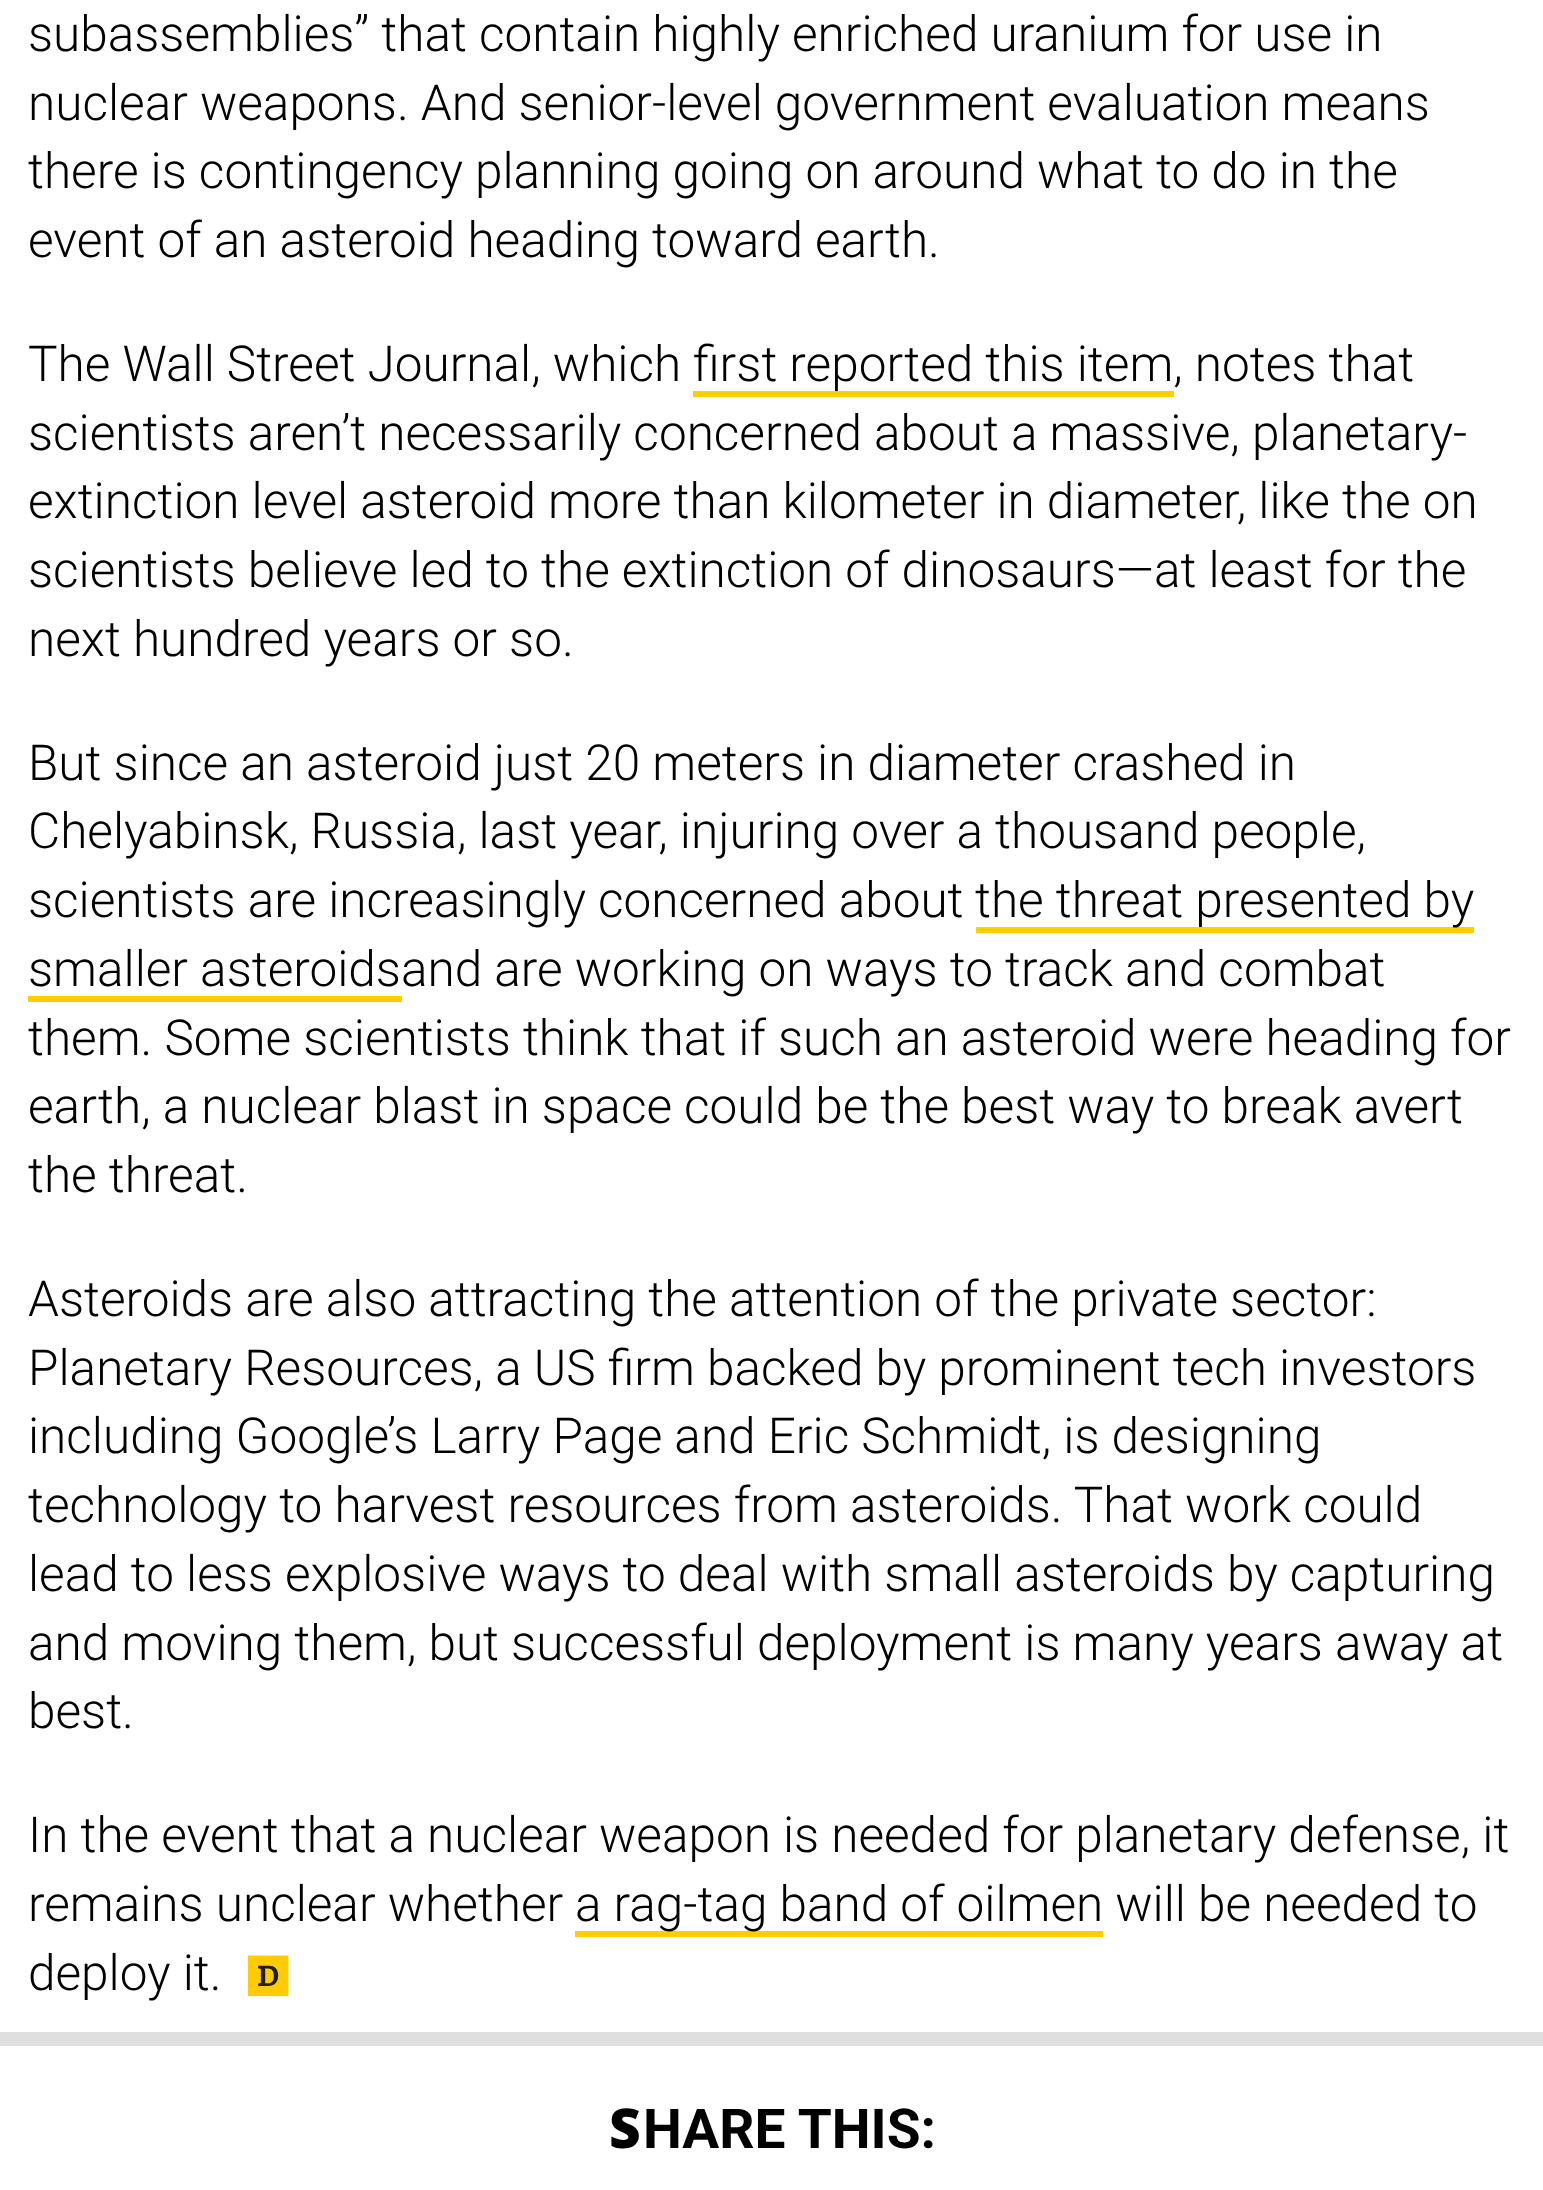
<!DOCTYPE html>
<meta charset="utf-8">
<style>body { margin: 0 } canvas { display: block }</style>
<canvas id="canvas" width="1543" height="2190"></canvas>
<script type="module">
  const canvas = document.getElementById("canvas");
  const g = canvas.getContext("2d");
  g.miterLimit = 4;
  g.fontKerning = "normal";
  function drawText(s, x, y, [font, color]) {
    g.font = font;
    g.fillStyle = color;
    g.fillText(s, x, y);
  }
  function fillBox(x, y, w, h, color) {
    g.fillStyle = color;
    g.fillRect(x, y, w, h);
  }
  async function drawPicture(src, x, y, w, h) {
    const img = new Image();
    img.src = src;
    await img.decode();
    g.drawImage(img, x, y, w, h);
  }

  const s1 = ["300 49.5px Roboto", "#000000"];
  const s2 = ["900 55px Noto Sans", "#000000"];
  const s3 = ["bold 55px Roboto", "#000000"];

  fillBox(0, 0, 1543, 2190, "#FFFFFF");
  drawText("subassemblies” that contain highly enriched uranium for use in", 28, 51, s1);
  drawText("nuclear weapons. And senior-level government evaluation means", 28, 120, s1);
  drawText("there is contingency planning going on around what to do in the", 28, 188, s1);
  drawText("event of an asteroid heading toward earth.", 28, 257, s1);
  drawText("The Wall Street Journal, which", 28, 381, s1);
  fillBox(693, 391, 481, 6, "#FFCD00");
  drawText("first reported this item, notes that", 693, 381, s1);
  drawText("scientists aren’t necessarily concerned about a massive, planetary-", 28, 450, s1);
  drawText("extinction level asteroid more than kilometer in diameter, like the on", 28, 518, s1);
  drawText("scientists believe led to the extinction of dinosaurs—at least for the", 28, 587, s1);
  drawText("next hundred years or so.", 28, 656, s1);
  drawText("But since an asteroid just 20 meters in diameter crashed in", 28, 780, s1);
  drawText("Chelyabinsk, Russia, last year, injuring over a thousand people,", 28, 848, s1);
  drawText("scientists are increasingly concerned about", 28, 917, s1);
  fillBox(976, 927, 498, 6, "#FFCD00");
  drawText("the threat presented by", 975, 917, s1);
  fillBox(28, 996, 374, 6, "#FFCD00");
  drawText("smaller asteroidsand are working on ways to track and combat", 28, 986, s1);
  drawText("them. Some scientists think that if such an asteroid were heading for", 28, 1055, s1);
  drawText("earth, a nuclear blast in space could be the best way to break avert", 28, 1123, s1);
  drawText("the threat.", 28, 1192, s1);
  drawText("Asteroids are also attracting the attention of the private sector:", 28, 1316, s1);
  drawText("Planetary Resources, a US firm backed by prominent tech investors", 28, 1385, s1);
  drawText("including Google’s Larry Page and Eric Schmidt, is designing", 28, 1453, s1);
  drawText("technology to harvest resources from asteroids. That work could", 28, 1522, s1);
  drawText("lead to less explosive ways to deal with small asteroids by capturing", 28, 1591, s1);
  drawText("and moving them, but successful deployment is many years away at", 28, 1660, s1);
  drawText("best.", 28, 1728, s1);
  drawText("In the event that a nuclear weapon is needed for planetary defense, it", 28, 1852, s1);
  drawText("remains unclear whether", 28, 1921, s1);
  fillBox(575, 1931, 528, 6, "#FFCD00");
  drawText("a rag-tag band of oilmen will be needed to", 575, 1921, s1);
  drawText("deploy it.", 28, 1990, s1);
  await drawPicture("pic1.png", 247, 1955, 42, 42);
  fillBox(0, 2032, 1543, 14, "#DFDFDF");
  drawText("S", 609, 2148, s2);
  drawText("HARE THIS:", 643, 2148, s3);
</script>
